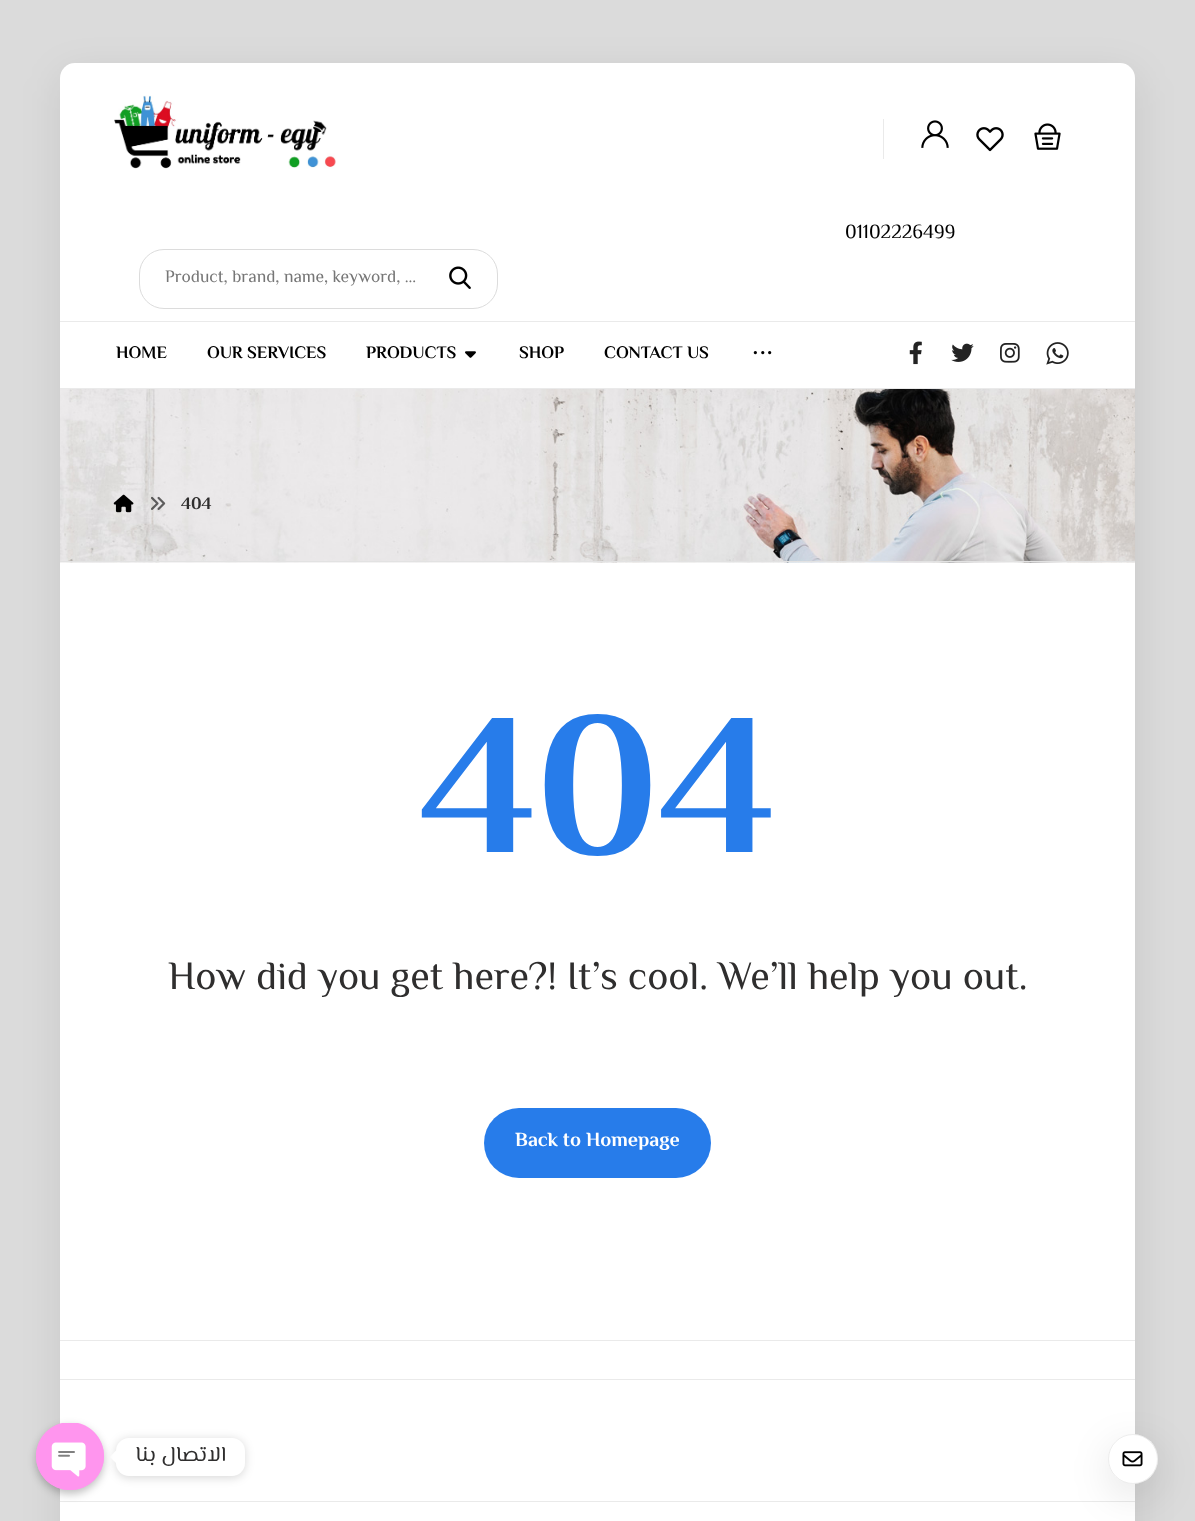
<!DOCTYPE html>
<meta charset="utf-8">
<style>body { margin: 0 } canvas { display: block }</style>
<canvas id="canvas" width="1195" height="1521"></canvas>
<script type="module">
  const canvas = document.getElementById("canvas");
  const g = canvas.getContext("2d");
  g.miterLimit = 4;
  g.fontKerning = "normal";
  function drawText(s, x, y, [font, color]) {
    g.font = font;
    g.fillStyle = color;
    g.fillText(s, x, y);
  }
  function fillBox(x, y, w, h, color) {
    g.fillStyle = color;
    g.fillRect(x, y, w, h);
  }
  function fillRounded(x, y, w, h, r, color) {
    g.fillStyle = color;
    g.beginPath();
    g.roundRect(x, y, w, h, r);
    g.fill();
  }
  async function drawPicture(src, x, y, w, h) {
    const img = new Image();
    img.src = src;
    await img.decode();
    g.drawImage(img, x, y, w, h);
  }

  const s1 = ["20px El Messiri", "#000000"];
  const s2 = ["17.5px El Messiri", "#767676"];
  const s3 = ["bold 17.5px El Messiri", "#000000"];
  const s4 = ["bold 17.5px El Messiri", "#2F2E2E"];
  const s5 = ["bold 203px El Messiri", "#277CEA"];
  const s6 = ["40px El Messiri", "#2F2E2E"];
  const s7 = ["bold 20px El Messiri", "#FFFFFF"];
  const s8 = ["21.25px El Messiri", "#2F2E2E"];

  fillBox(0, 0, 1195, 1521, "#DBDBDB");
  g.fillStyle = "rgba(0, 0, 0, 0.09)";
  g.filter = "blur(20px)";
  g.beginPath();
  g.roundRect(61, 75, 1075, 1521, 15);
  g.fill();
  g.filter = "none";
  fillRounded(60, 63, 1075, 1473, 15, "#FFFFFF");
  fillBox(60, 321, 1075, 1, "#EAEAEA");
  fillBox(883, 119, 1, 40, "#EAEAEA");
  await drawPicture("pic1.png", 921, 120, 28, 28);
  await drawPicture("pic2.png", 976, 127, 28, 25);
  await drawPicture("pic3.png", 1034, 123, 27, 27);
  drawText("01102226499", 845, 238, s1);
  await drawPicture("pic4.png", 114, 95, 222, 74);
  g.beginPath();
  g.roundRect(139.5, 249.5, 358, 59, 24.5);
  g.strokeStyle = "#DCDCDC";
  g.stroke();
  drawText("Product, brand, name, keyword, ...", 165, 282, s2);
  await drawPicture("pic5.png", 449, 266, 22, 23);
  fillBox(60, 388, 1075, 1, "#EAEAEA");
  drawText("HOME", 116, 358, s3);
  drawText("OUR SERVICES", 207, 358, s3);
  drawText("PRODUCTS", 366, 358, s3);
  await drawPicture("pic6.png", 465, 351, 11, 7);
  drawText("SHOP", 519, 358, s3);
  drawText("CONTACT US", 604, 358, s3);
  await drawPicture("pic7.png", 753, 351, 19, 4);
  await drawPicture("pic8.png", 909, 341, 13, 24);
  await drawPicture("pic9.png", 951, 343, 23, 19);
  await drawPicture("pic10.png", 1000, 343, 20, 20);
  await drawPicture("pic11.png", 1046, 342, 23, 23);
  await drawPicture("pic12.png", 60, 389, 1075, 174);
  fillBox(60, 561, 1075, 1, "#E2E2E2");
  await drawPicture("pic13.png", 113, 494, 21, 19);
  await drawPicture("pic14.png", 151, 496, 15, 14);
  drawText("404", 181, 509, s4);
  drawText("404", 420, 852, s5);
  drawText("How did you get here?! It’s cool. We’ll help you out.", 168, 989, s6);
  fillRounded(484, 1108, 227, 70, 35, "#277CEA");
  drawText("Back to Homepage", 515, 1146, s7);
  fillBox(60, 1340, 1075, 1, "#EAEAEA");
  fillBox(60, 1379, 1075, 1, "#EAEAEA");
  fillBox(60, 1501, 1075, 1, "#EAEAEA");
  g.fillStyle = "rgba(0, 0, 0, 0.15)";
  g.filter = "blur(5px)";
  g.beginPath();
  g.roundRect(116, 1439, 129, 39, 13);
  g.fill();
  g.filter = "none";
  fillRounded(116, 1438, 129, 38, 13, "#FFFFFF");
  g.beginPath();
  g.moveTo(116, 1450.5);
  g.lineTo(116, 1463);
  g.lineTo(110, 1457);
  g.closePath();
  g.fill();
  g.fillStyle = "rgba(0, 0, 0, 0.25)";
  g.filter = "blur(4px)";
  g.beginPath();
  g.roundRect(36, 1426, 68, 68, 34);
  g.fill();
  g.filter = "none";
  fillRounded(36, 1423, 68, 67, 33.5, "#FF95EE");
  await drawPicture("pic15.png", 36, 1423, 68, 67);
  g.direction = "rtl";
  drawText("الاتصال بنا", 226, 1461, s8);
  g.fillStyle = "rgba(0, 0, 0, 0.11)";
  g.filter = "blur(20px)";
  g.beginPath();
  g.roundRect(1109, 1446, 50, 50, 25);
  g.fill();
  g.filter = "none";
  g.fillStyle = "#FFFFFF";
  g.beginPath();
  g.arc(1133, 1459, 25, 0, Math.PI * 2);
  g.fill();
  g.beginPath();
  g.arc(1133, 1459, 24.5, 0, Math.PI * 2);
  g.strokeStyle = "rgba(167, 167, 167, 0.2)";
  g.stroke();
  await drawPicture("pic16.png", 1122, 1451, 21, 16);
</script>
